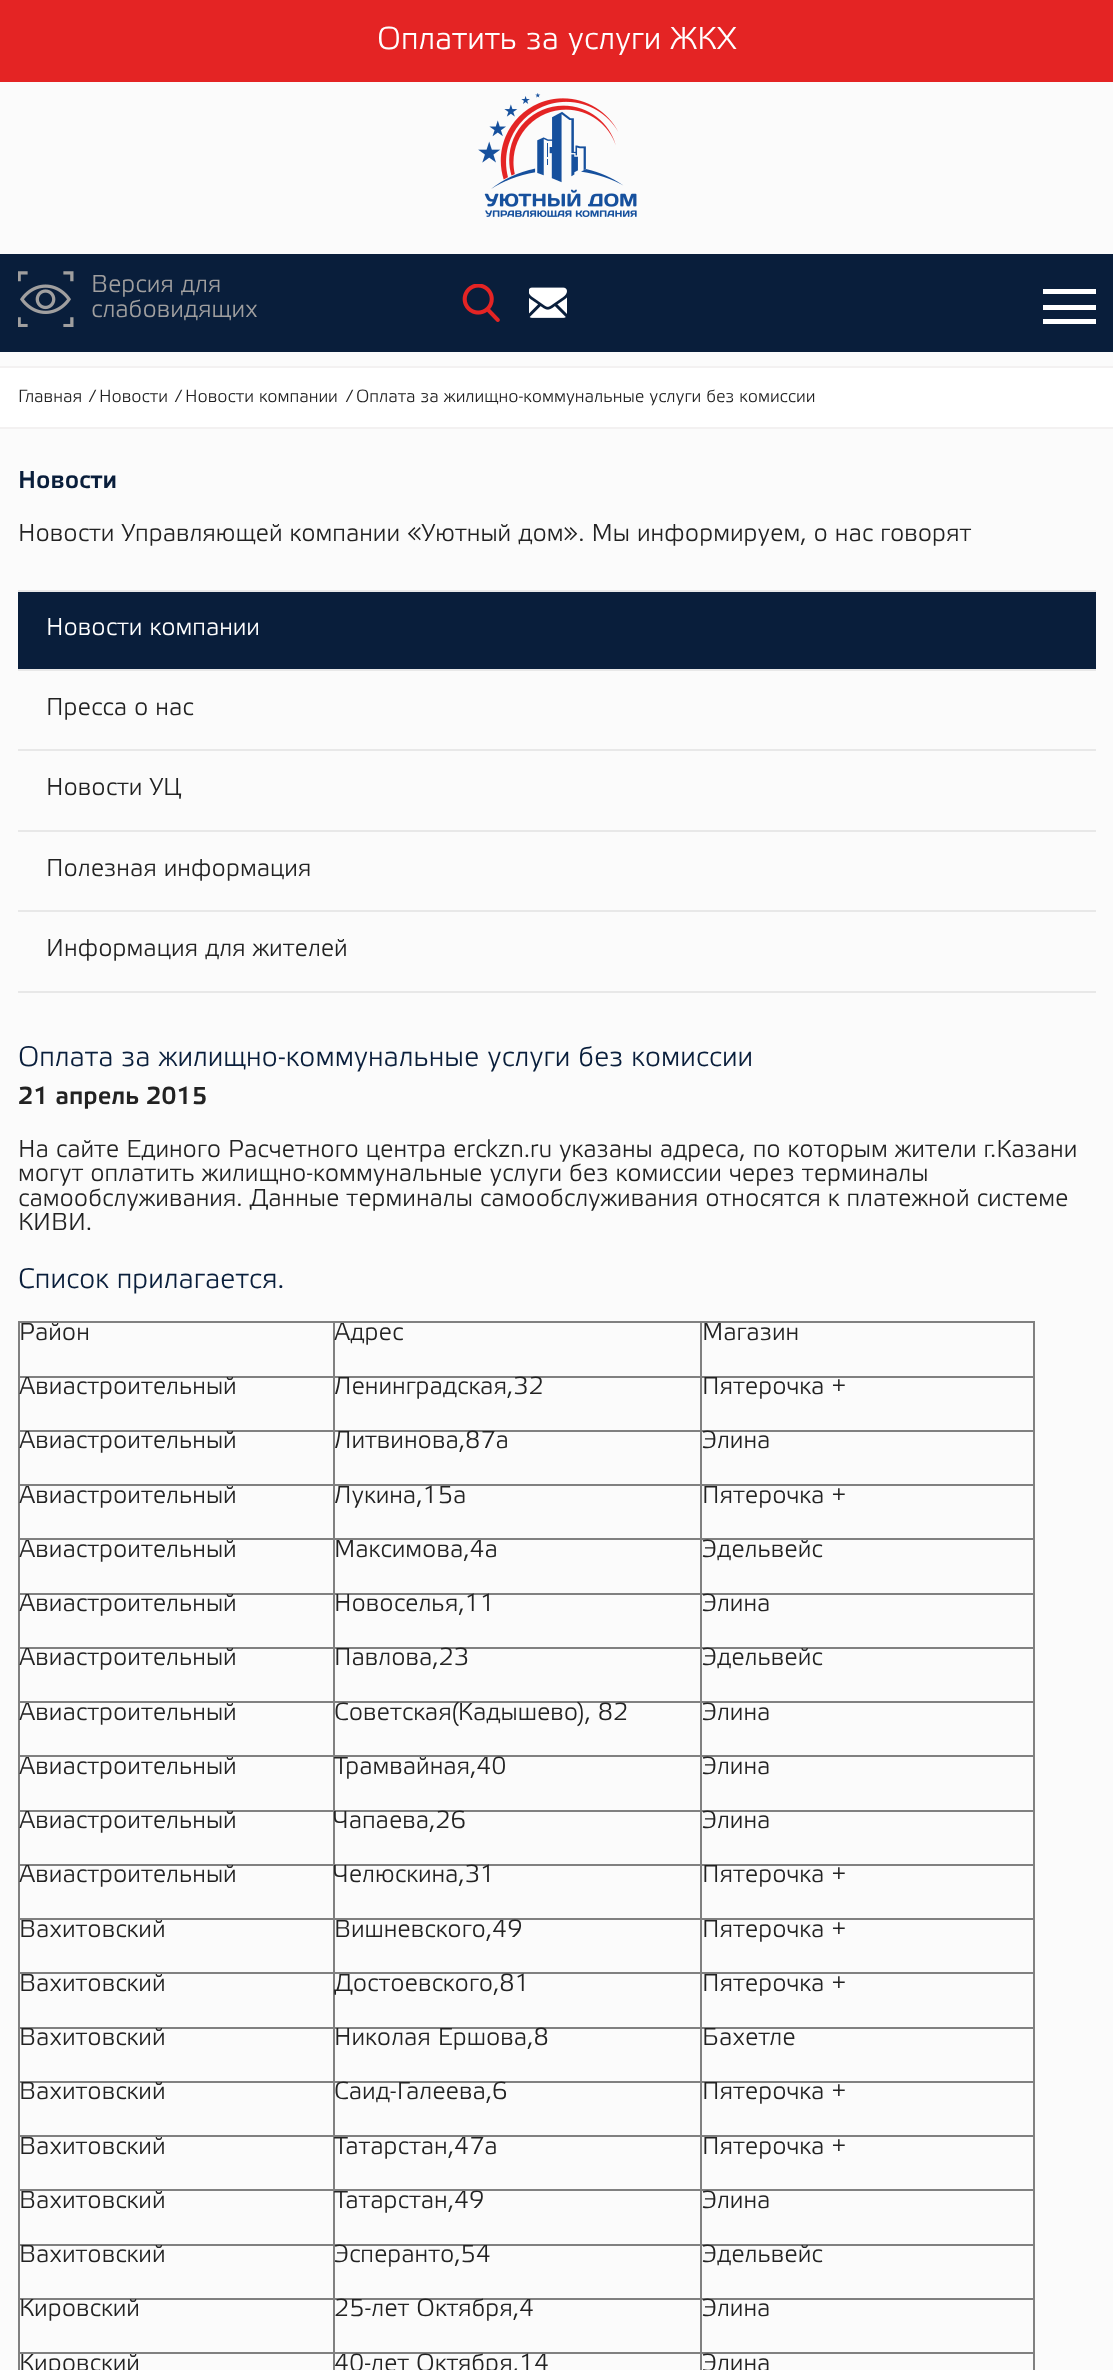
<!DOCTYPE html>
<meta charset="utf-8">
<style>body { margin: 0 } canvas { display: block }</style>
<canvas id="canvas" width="1113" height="2370"></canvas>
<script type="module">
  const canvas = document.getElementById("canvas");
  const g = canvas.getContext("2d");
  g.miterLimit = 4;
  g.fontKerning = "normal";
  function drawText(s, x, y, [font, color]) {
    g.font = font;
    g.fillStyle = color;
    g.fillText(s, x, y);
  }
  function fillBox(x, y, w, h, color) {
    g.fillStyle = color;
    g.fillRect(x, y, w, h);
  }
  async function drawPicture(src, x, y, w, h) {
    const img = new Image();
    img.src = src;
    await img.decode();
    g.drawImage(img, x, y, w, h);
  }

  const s1 = ["300 31.5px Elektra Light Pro", "#FFFFFF"];
  const s2 = ["300 24.5px Elektra Light Pro", "#A09F9F"];
  const s3 = ["300 17.5px Elektra Light Pro", "#222222"];
  const s4 = ["500 24.5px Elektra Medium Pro", "#091E3B"];
  const s5 = ["300 24.5px Elektra Light Pro", "#222222"];
  const s6 = ["300 24.5px Elektra Light Pro", "#FFFFFF"];
  const s7 = ["300 28px Elektra Light Pro", "#091E3B"];
  const s8 = ["500 24.5px Elektra Medium Pro", "#222222"];

  fillBox(0, 0, 1113, 2370, "#FBFBFB");
  fillBox(0, 0, 1113, 82, "#E42424");
  drawText("Оплатить за услуги ЖКХ", 377, 49, s1);
  await drawPicture("pic1.png", 478, 93, 159, 124);
  fillBox(0, 254, 1113, 98, "#091E3B");
  await drawPicture("pic2.png", 18, 271, 56, 56);
  drawText("Версия для", 91, 292, s2);
  drawText("слабовидящих", 91, 317, s2);
  await drawPicture("pic3.png", 462, 284, 38, 38);
  await drawPicture("pic4.png", 529, 287, 38, 31);
  fillBox(1043, 289, 53, 5, "#FFFFFF");
  fillBox(1043, 305, 53, 5, "#FFFFFF");
  fillBox(1043, 319, 53, 5, "#FFFFFF");
  fillBox(0, 368, 1113, 59, "#FFFFFF");
  fillBox(0, 366, 1113, 2, "#F3F1F1");
  fillBox(0, 427, 1113, 2, "#F3F1F1");
  drawText("Главная", 18, 402, s3);
  drawText("/", 88, 402, s3);
  drawText("Новости", 99, 402, s3);
  drawText("/", 174, 402, s3);
  drawText("Новости компании", 185, 402, s3);
  drawText("/", 345, 402, s3);
  drawText("Оплата за жилищно-коммунальные услуги без комиссии", 356, 402, s3);
  drawText("Новости", 18, 488, s4);
  drawText("Новости Управляющей компании «Уютный дом». Мы информируем, о нас говорят", 18, 541, s5);
  fillBox(18, 592, 1078, 77, "#091E3B");
  fillBox(18, 590, 1078, 2, "#E8E8E8");
  fillBox(18, 669, 1078, 2, "#E8E8E8");
  drawText("Новости компании", 46, 635, s6);
  fillBox(18, 749, 1078, 2, "#E8E8E8");
  drawText("Пресса о нас", 46, 715, s5);
  fillBox(18, 830, 1078, 2, "#E8E8E8");
  drawText("Новости УЦ", 46, 795, s5);
  fillBox(18, 910, 1078, 2, "#E8E8E8");
  drawText("Полезная информация", 46, 876, s5);
  fillBox(18, 991, 1078, 2, "#E8E8E8");
  drawText("Информация для жителей", 46, 956, s5);
  drawText("Оплата за жилищно-коммунальные услуги без комиссии", 18, 1066, s7);
  drawText("21 апрель 2015", 18, 1104, s8);
  drawText("На сайте Единого Расчетного центра erckzn.ru указаны адреса, по которым жители г.Казани", 18, 1157, s5);
  drawText("могут оплатить жилищно-коммунальные услуги без комиссии через терминалы", 18, 1181, s5);
  drawText("самообслуживания. Данные терминалы самообслуживания относятся к платежной системе", 18, 1206, s5);
  drawText("КИВИ.", 18, 1230, s5);
  drawText("Список прилагается.", 18, 1288, s7);
  fillBox(18, 1321, 1016, 2, "#808080");
  fillBox(1033, 1321, 2, 1049, "#808080");
  fillBox(18, 1321, 2, 1049, "#808080");
  drawText("Район", 19, 1340, s5);
  fillBox(700, 1376, 334, 2, "#808080");
  fillBox(700, 1430, 334, 2, "#808080");
  fillBox(700, 1484, 334, 2, "#808080");
  fillBox(700, 1538, 334, 2, "#808080");
  fillBox(700, 1593, 334, 2, "#808080");
  fillBox(700, 1647, 334, 2, "#808080");
  fillBox(700, 1701, 334, 2, "#808080");
  fillBox(700, 1755, 334, 2, "#808080");
  fillBox(700, 1810, 334, 2, "#808080");
  fillBox(700, 1864, 334, 2, "#808080");
  fillBox(700, 1918, 334, 2, "#808080");
  fillBox(700, 1972, 334, 2, "#808080");
  fillBox(700, 2027, 334, 2, "#808080");
  fillBox(700, 2081, 334, 2, "#808080");
  fillBox(700, 2135, 334, 2, "#808080");
  fillBox(700, 2189, 334, 2, "#808080");
  fillBox(700, 2244, 334, 2, "#808080");
  fillBox(700, 2298, 334, 2, "#808080");
  fillBox(700, 2352, 334, 2, "#808080");
  fillBox(700, 2352, 2, 18, "#808080");
  fillBox(333, 2352, 369, 2, "#808080");
  fillBox(700, 2298, 2, 56, "#808080");
  fillBox(333, 2298, 369, 2, "#808080");
  fillBox(700, 2244, 2, 56, "#808080");
  fillBox(333, 2244, 369, 2, "#808080");
  fillBox(700, 2189, 2, 56, "#808080");
  fillBox(333, 2189, 369, 2, "#808080");
  fillBox(700, 2135, 2, 56, "#808080");
  fillBox(333, 2135, 369, 2, "#808080");
  fillBox(700, 2081, 2, 56, "#808080");
  fillBox(333, 2081, 369, 2, "#808080");
  fillBox(700, 2027, 2, 56, "#808080");
  fillBox(333, 2027, 369, 2, "#808080");
  fillBox(700, 1972, 2, 56, "#808080");
  fillBox(333, 1972, 369, 2, "#808080");
  fillBox(700, 1918, 2, 56, "#808080");
  fillBox(333, 1918, 369, 2, "#808080");
  fillBox(700, 1864, 2, 56, "#808080");
  fillBox(333, 1864, 369, 2, "#808080");
  fillBox(700, 1810, 2, 56, "#808080");
  fillBox(333, 1810, 369, 2, "#808080");
  fillBox(700, 1755, 2, 56, "#808080");
  fillBox(333, 1755, 369, 2, "#808080");
  fillBox(700, 1701, 2, 56, "#808080");
  fillBox(333, 1701, 369, 2, "#808080");
  fillBox(700, 1647, 2, 56, "#808080");
  fillBox(333, 1647, 369, 2, "#808080");
  fillBox(700, 1593, 2, 56, "#808080");
  fillBox(333, 1593, 369, 2, "#808080");
  fillBox(700, 1538, 2, 56, "#808080");
  fillBox(333, 1538, 369, 2, "#808080");
  fillBox(700, 1484, 2, 56, "#808080");
  fillBox(333, 1484, 369, 2, "#808080");
  fillBox(700, 1430, 2, 56, "#808080");
  fillBox(333, 1430, 369, 2, "#808080");
  fillBox(700, 1376, 2, 56, "#808080");
  fillBox(333, 1376, 369, 2, "#808080");
  fillBox(333, 2352, 2, 18, "#808080");
  fillBox(18, 2352, 316, 2, "#808080");
  fillBox(333, 2298, 2, 56, "#808080");
  fillBox(18, 2298, 316, 2, "#808080");
  fillBox(333, 2244, 2, 56, "#808080");
  fillBox(18, 2244, 316, 2, "#808080");
  fillBox(333, 2189, 2, 56, "#808080");
  fillBox(18, 2189, 316, 2, "#808080");
  fillBox(333, 2135, 2, 56, "#808080");
  fillBox(18, 2135, 316, 2, "#808080");
  fillBox(333, 2081, 2, 56, "#808080");
  fillBox(18, 2081, 316, 2, "#808080");
  fillBox(333, 2027, 2, 56, "#808080");
  fillBox(18, 2027, 316, 2, "#808080");
  fillBox(333, 1972, 2, 56, "#808080");
  fillBox(18, 1972, 316, 2, "#808080");
  fillBox(333, 1918, 2, 56, "#808080");
  fillBox(18, 1918, 316, 2, "#808080");
  fillBox(333, 1864, 2, 56, "#808080");
  fillBox(18, 1864, 316, 2, "#808080");
  fillBox(333, 1810, 2, 56, "#808080");
  fillBox(18, 1810, 316, 2, "#808080");
  fillBox(333, 1755, 2, 56, "#808080");
  fillBox(18, 1755, 316, 2, "#808080");
  fillBox(333, 1701, 2, 56, "#808080");
  fillBox(18, 1701, 316, 2, "#808080");
  fillBox(333, 1647, 2, 56, "#808080");
  fillBox(18, 1647, 316, 2, "#808080");
  fillBox(333, 1593, 2, 56, "#808080");
  fillBox(18, 1593, 316, 2, "#808080");
  fillBox(333, 1538, 2, 56, "#808080");
  fillBox(18, 1538, 316, 2, "#808080");
  fillBox(333, 1484, 2, 56, "#808080");
  fillBox(18, 1484, 316, 2, "#808080");
  fillBox(333, 1430, 2, 56, "#808080");
  fillBox(18, 1430, 316, 2, "#808080");
  fillBox(333, 1376, 2, 56, "#808080");
  fillBox(18, 1376, 316, 2, "#808080");
  fillBox(333, 1321, 2, 56, "#808080");
  drawText("Адрес", 334, 1340, s5);
  fillBox(700, 1321, 2, 56, "#808080");
  drawText("Магазин", 702, 1340, s5);
  drawText("Авиастроительный", 19, 1394, s5);
  drawText("Ленинградская,32", 334, 1394, s5);
  drawText("Пятерочка +", 702, 1394, s5);
  drawText("Авиастроительный", 19, 1448, s5);
  drawText("Литвинова,87а", 334, 1448, s5);
  drawText("Элина", 702, 1448, s5);
  drawText("Авиастроительный", 19, 1503, s5);
  drawText("Лукина,15а", 334, 1503, s5);
  drawText("Пятерочка +", 702, 1503, s5);
  drawText("Авиастроительный", 19, 1557, s5);
  drawText("Максимова,4а", 334, 1557, s5);
  drawText("Эдельвейс", 702, 1557, s5);
  drawText("Авиастроительный", 19, 1611, s5);
  drawText("Новоселья,11", 334, 1611, s5);
  drawText("Элина", 702, 1611, s5);
  drawText("Авиастроительный", 19, 1665, s5);
  drawText("Павлова,23", 334, 1665, s5);
  drawText("Эдельвейс", 702, 1665, s5);
  drawText("Авиастроительный", 19, 1720, s5);
  drawText("Советская(Кадышево), 82", 334, 1720, s5);
  drawText("Элина", 702, 1720, s5);
  drawText("Авиастроительный", 19, 1774, s5);
  drawText("Трамвайная,40", 334, 1774, s5);
  drawText("Элина", 702, 1774, s5);
  drawText("Авиастроительный", 19, 1828, s5);
  drawText("Чапаева,26", 334, 1828, s5);
  drawText("Элина", 702, 1828, s5);
  drawText("Авиастроительный", 19, 1882, s5);
  drawText("Челюскина,31", 334, 1882, s5);
  drawText("Пятерочка +", 702, 1882, s5);
  drawText("Вахитовский", 19, 1937, s5);
  drawText("Вишневского,49", 334, 1937, s5);
  drawText("Пятерочка +", 702, 1937, s5);
  drawText("Вахитовский", 19, 1991, s5);
  drawText("Достоевского,81", 334, 1991, s5);
  drawText("Пятерочка +", 702, 1991, s5);
  drawText("Вахитовский", 19, 2045, s5);
  drawText("Николая Ершова,8", 334, 2045, s5);
  drawText("Бахетле", 702, 2045, s5);
  drawText("Вахитовский", 19, 2099, s5);
  drawText("Саид-Галеева,6", 334, 2099, s5);
  drawText("Пятерочка +", 702, 2099, s5);
  drawText("Вахитовский", 19, 2154, s5);
  drawText("Татарстан,47а", 334, 2154, s5);
  drawText("Пятерочка +", 702, 2154, s5);
  drawText("Вахитовский", 19, 2208, s5);
  drawText("Татарстан,49", 334, 2208, s5);
  drawText("Элина", 702, 2208, s5);
  drawText("Вахитовский", 19, 2262, s5);
  drawText("Эсперанто,54", 334, 2262, s5);
  drawText("Эдельвейс", 702, 2262, s5);
  drawText("Кировский", 19, 2316, s5);
  drawText("25-лет Октября,4", 334, 2316, s5);
  drawText("Элина", 702, 2316, s5);
  drawText("Кировский", 19, 2371, s5);
  drawText("40-лет Октября,14", 334, 2371, s5);
  drawText("Элина", 702, 2371, s5);
</script>
